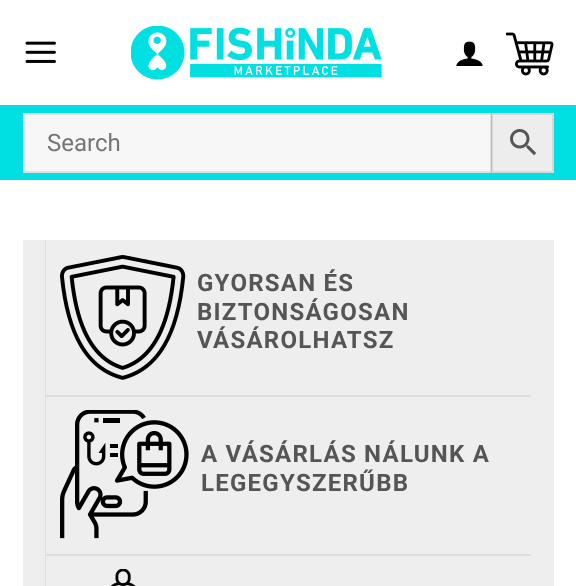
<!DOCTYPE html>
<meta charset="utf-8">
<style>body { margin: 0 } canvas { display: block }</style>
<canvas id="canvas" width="576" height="586"></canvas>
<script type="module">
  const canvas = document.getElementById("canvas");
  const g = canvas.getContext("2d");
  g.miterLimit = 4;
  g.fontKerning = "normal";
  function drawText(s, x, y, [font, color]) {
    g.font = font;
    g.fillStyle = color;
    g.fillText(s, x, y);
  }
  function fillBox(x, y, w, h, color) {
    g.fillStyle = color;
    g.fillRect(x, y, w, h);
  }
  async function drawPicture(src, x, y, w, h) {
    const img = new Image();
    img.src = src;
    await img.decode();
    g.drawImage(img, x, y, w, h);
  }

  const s1 = ["24px Roboto", "#757575"];
  const s2 = ["bold 24px Roboto", "#555555"];

  fillBox(0, 0, 576, 586, "#FFFFFF");
  await drawPicture("pic1.png", 25, 41, 31, 22);
  await drawPicture("pic2.png", 131, 26, 251, 54);
  await drawPicture("pic3.png", 456, 41, 27, 25);
  await drawPicture("pic4.png", 506, 32, 48, 44);
  fillBox(0, 105, 576, 75, "#00E0E2");
  fillBox(23, 113, 468, 60, "#FFFFFF");
  g.fillStyle = "#EDEDED";
  g.beginPath();
  g.rect(492, 114, 61, 58);
  g.fill();
  g.strokeStyle = "#D8D8D8";
  g.lineWidth = 2;
  g.stroke();
  fillBox(23, 113, 469, 60, "rgba(0, 0, 0, 0.03)");
  g.strokeStyle = "rgba(0, 0, 0, 0.09)";
  g.strokeRect(24, 114, 467, 58);
  drawText("Search", 47, 151, s1);
  await drawPicture("pic5.png", 510, 129, 27, 27);
  fillBox(23, 240, 531, 346, "#EEEEEE");
  fillBox(45, 240, 1, 155, "#DDDDDD");
  await drawPicture("pic6.png", 60, 255, 126, 125);
  g.letterSpacing = "1.25px";
  drawText("GYORSAN ÉS", 197, 291, s2);
  drawText("BIZTONSÁGOSAN", 197, 320, s2);
  drawText("VÁSÁROLHATSZ", 197, 348, s2);
  fillBox(45, 395, 486, 2, "#DDDDDD");
  fillBox(45, 395, 1, 159, "#DDDDDD");
  await drawPicture("pic7.png", 60, 410, 129, 129);
  drawText("A VÁSÁRLÁS NÁLUNK A", 201, 462, s2);
  drawText("LEGEGYSZERŰBB", 201, 491, s2);
  fillBox(45, 554, 486, 2, "#DDDDDD");
  fillBox(45, 554, 1, 32, "#DDDDDD");
  await drawPicture("pic8.png", 110, 569, 26, 17);
</script>
